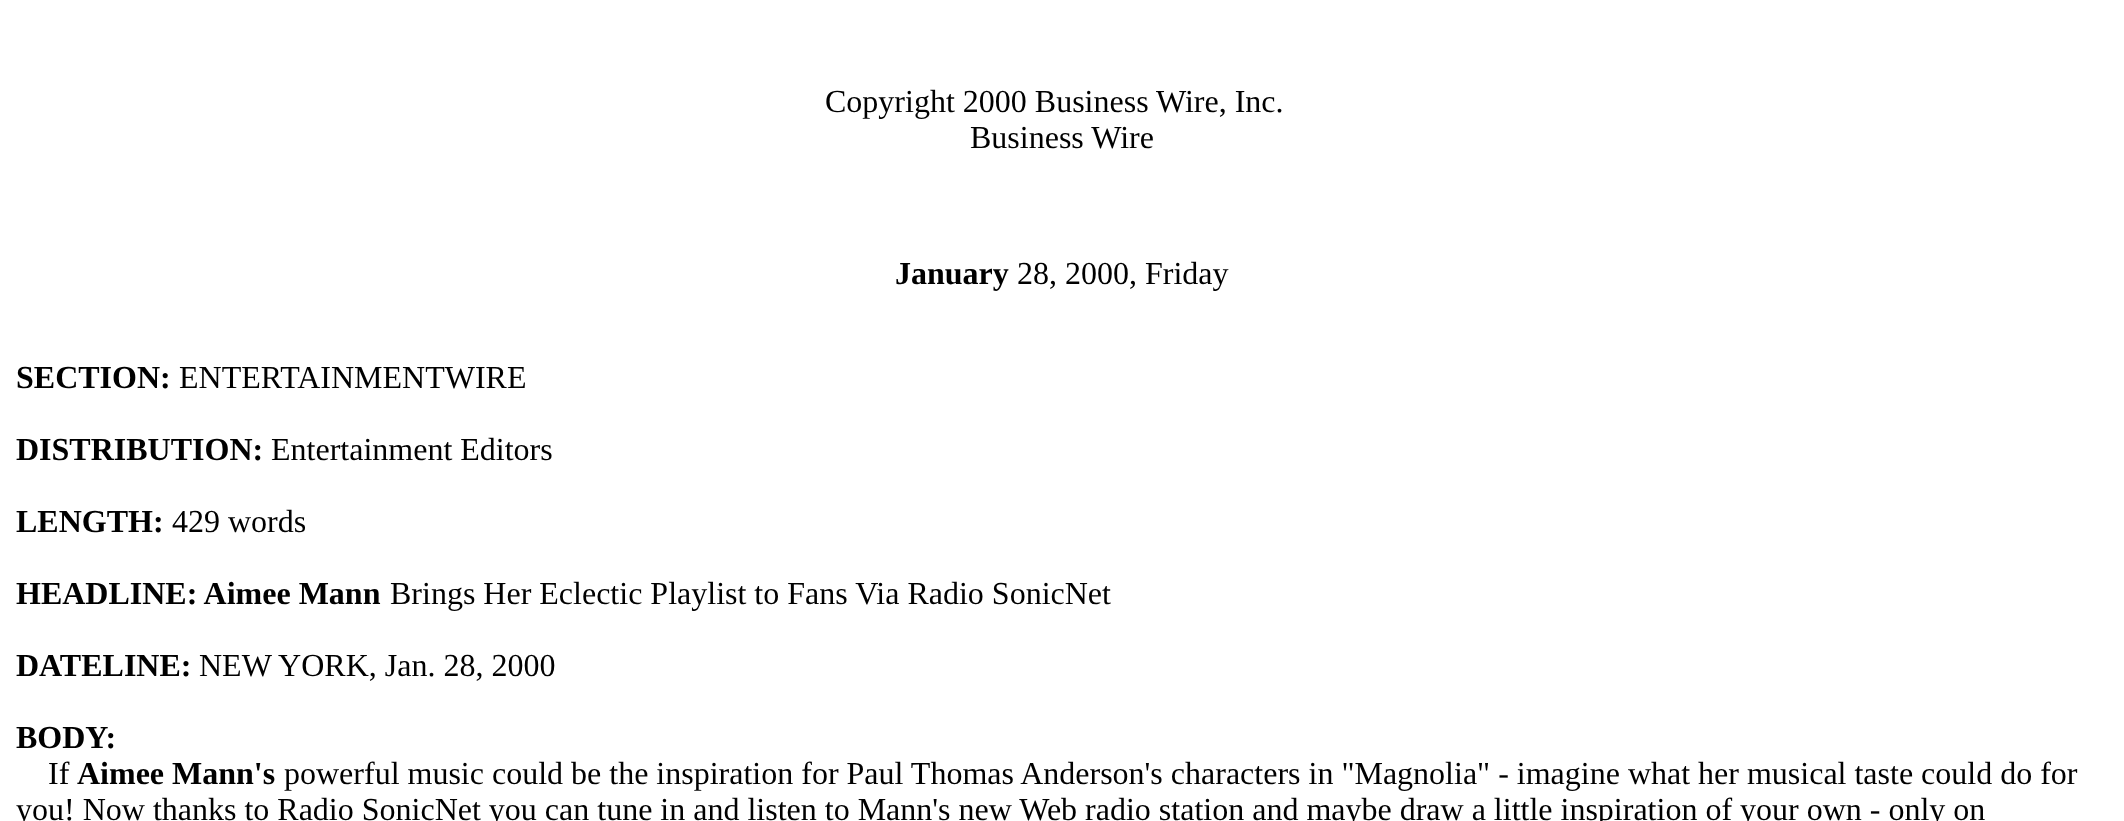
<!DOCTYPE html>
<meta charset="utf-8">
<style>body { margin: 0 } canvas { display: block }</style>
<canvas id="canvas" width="2124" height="821"></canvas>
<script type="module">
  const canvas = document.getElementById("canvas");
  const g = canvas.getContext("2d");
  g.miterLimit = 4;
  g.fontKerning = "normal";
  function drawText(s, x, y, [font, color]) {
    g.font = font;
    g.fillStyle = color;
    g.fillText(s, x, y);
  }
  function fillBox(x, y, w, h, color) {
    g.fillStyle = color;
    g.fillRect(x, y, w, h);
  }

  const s1 = ["32px Liberation Serif", "#000000"];
  const s2 = ["bold 32px Liberation Serif", "#000000"];

  fillBox(0, 0, 2124, 821, "#FFFFFF");
  drawText("Copyright 2000 Business Wire, Inc.", 825, 112, s1);
  drawText("Business Wire", 970, 148, s1);
  drawText("January", 895, 284, s2);
  drawText("28, 2000, Friday", 1017, 284, s1);
  drawText("SECTION:", 16, 388, s2);
  drawText("ENTERTAINMENTWIRE", 179, 388, s1);
  drawText("DISTRIBUTION:", 16, 460, s2);
  drawText("Entertainment Editors", 271, 460, s1);
  drawText("LENGTH:", 16, 532, s2);
  drawText("429 words", 172, 532, s1);
  drawText("HEADLINE: Aimee Mann", 16, 604, s2);
  drawText("Brings Her Eclectic Playlist to Fans Via Radio SonicNet", 390, 604, s1);
  drawText("DATELINE:", 16, 676, s2);
  drawText("NEW YORK, Jan. 28, 2000", 199, 676, s1);
  drawText("BODY:", 16, 748, s2);
  drawText("If", 48, 784, s1);
  drawText("Aimee Mann's", 77, 784, s2);
  drawText("powerful music could be the inspiration for Paul Thomas Anderson's characters in \"Magnolia\" - imagine what her musical taste could do for", 284, 784, s1);
  drawText("you! Now thanks to Radio SonicNet you can tune in and listen to Mann's new Web radio station and maybe draw a little inspiration of your own - only on", 16, 820, s1);
</script>
